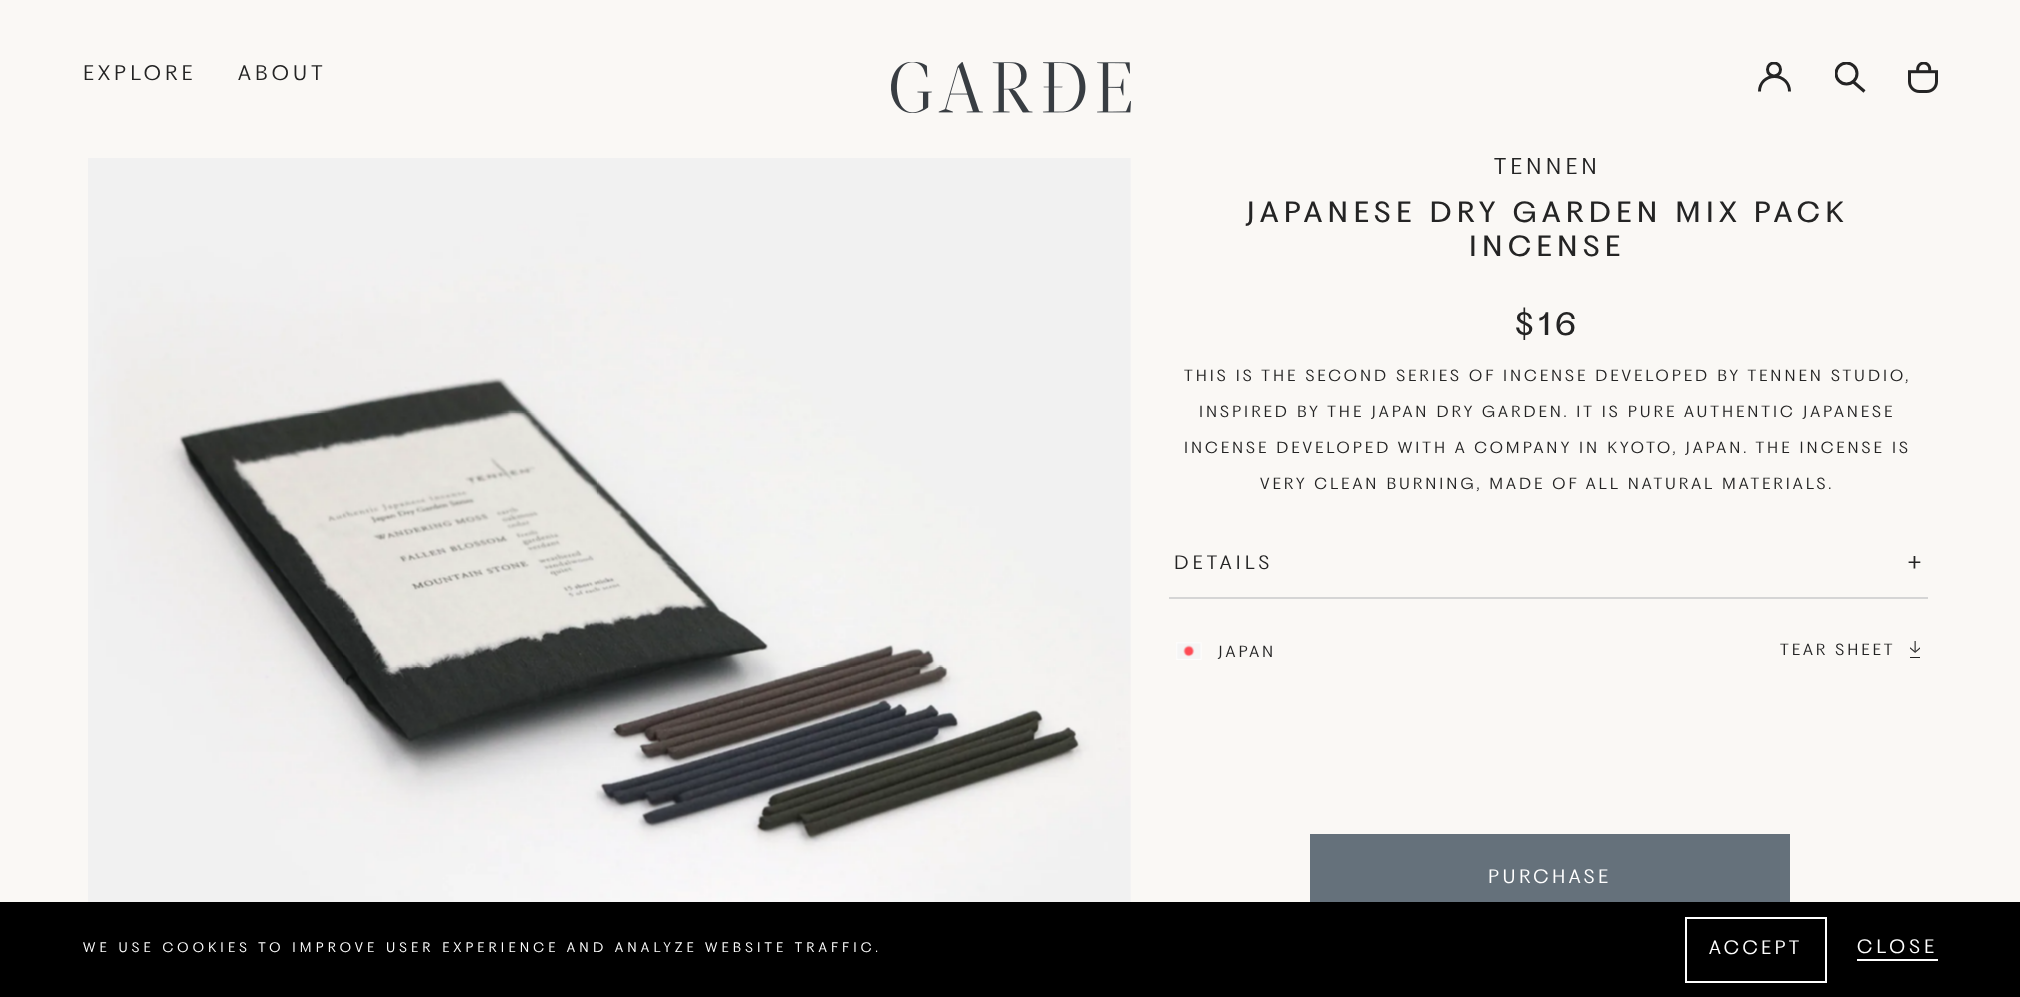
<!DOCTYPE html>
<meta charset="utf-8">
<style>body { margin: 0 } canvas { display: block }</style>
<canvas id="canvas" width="2020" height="997"></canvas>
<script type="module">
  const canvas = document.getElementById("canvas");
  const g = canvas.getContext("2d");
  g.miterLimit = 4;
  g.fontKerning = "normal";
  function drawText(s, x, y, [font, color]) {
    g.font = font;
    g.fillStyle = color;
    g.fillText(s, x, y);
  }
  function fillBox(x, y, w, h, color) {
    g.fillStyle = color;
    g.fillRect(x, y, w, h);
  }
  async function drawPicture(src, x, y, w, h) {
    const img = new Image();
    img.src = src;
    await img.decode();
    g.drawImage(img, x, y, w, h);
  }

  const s1 = ["300 19.5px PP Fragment", "#242424"];
  const s2 = ["300 21px PP Fragment", "#242424"];
  const s3 = ["27px PP Fragment", "#242424"];
  const s4 = ["30px PP Fragment", "#242424"];
  const s5 = ["300 15px PP Fragment", "#242424"];
  const s6 = ["300 18px PP Fragment", "#242424"];
  const s7 = ["300 26px PP Fragment", "#242424"];
  const s8 = ["300 18px PP Fragment", "#FFFFFF"];
  const s9 = ["300 12.75px PP Fragment", "#FFFFFF"];

  fillBox(0, 0, 2020, 997, "#FAF8F5");
  g.letterSpacing = "4.2px";
  drawText("EXPLORE", 83, 80, s1);
  drawText("ABOUT", 238, 80, s1);
  await drawPicture("pic1.png", 891, 62, 240, 51);
  g.save();
  g.beginPath();
  g.rect(1758, 62, 33, 30);
  g.clip();
  g.beginPath();
  g.arc(1774, 69.5, 6.5, 0, Math.PI * 2);
  g.strokeStyle = "#242424";
  g.lineWidth = 3;
  g.stroke();
  g.restore();
  g.beginPath();
  g.moveTo(1759.5, 91.5);
  g.bezierCurveTo(1759.5, 83, 1766, 76.5, 1774.5, 76.5);
  g.bezierCurveTo(1783, 76.5, 1789.5, 83, 1789.5, 91.5);
  g.strokeStyle = "#242424";
  g.lineWidth = 3;
  g.stroke();
  g.save();
  g.beginPath();
  g.rect(1835, 62, 30, 31);
  g.clip();
  g.beginPath();
  g.arc(1846.5, 73.5, 10.5, 0, Math.PI * 2);
  g.stroke();
  g.restore();
  g.beginPath();
  g.moveTo(1853.5, 82);
  g.lineTo(1864.5, 91.5);
  g.stroke();
  await drawPicture("pic2.png", 1908, 62, 30, 31);
  await drawPicture("pic3.png", 88, 158, 1043, 744);
  drawText("TENNEN", 1494, 174, s2);
  g.letterSpacing = "5.4px";
  drawText("JAPANESE DRY GARDEN MIX PACK", 1246, 222, s3);
  drawText("INCENSE", 1469, 256, s3);
  g.letterSpacing = "4.2px";
  drawText("$16", 1514, 335, s4);
  g.letterSpacing = "3px";
  drawText("THIS IS THE SECOND SERIES OF INCENSE DEVELOPED BY TENNEN STUDIO,", 1184, 381, s5);
  drawText("INSPIRED BY THE JAPAN DRY GARDEN. IT IS PURE AUTHENTIC JAPANESE", 1199, 417, s5);
  drawText("INCENSE DEVELOPED WITH A COMPANY IN KYOTO, JAPAN. THE INCENSE IS", 1184, 453, s5);
  drawText("VERY CLEAN BURNING, MADE OF ALL NATURAL MATERIALS.", 1260, 489, s5);
  fillBox(1169, 597, 759, 2, "#D5D5D5");
  g.letterSpacing = "4.2px";
  drawText("DETAILS", 1174, 569, s6);
  drawText("+", 1907, 569, s7);
  await drawPicture("pic4.png", 1176, 642, 26, 18);
  g.letterSpacing = "3px";
  drawText("JAPAN", 1218, 657, s5);
  drawText("TEAR SHEET", 1780, 655, s5);
  await drawPicture("pic5.png", 1910, 641, 10, 17);
  fillBox(1310, 834, 480, 68, "#65717B");
  g.letterSpacing = "3.5px";
  drawText("PURCHASE", 1488, 883, s8);
  fillBox(0, 902, 2020, 95, "#000000");
  g.letterSpacing = "4.2px";
  drawText("WE USE COOKIES TO IMPROVE USER EXPERIENCE AND ANALYZE WEBSITE TRAFFIC.", 83, 952, s9);
  g.strokeStyle = "#FFFFFF";
  g.lineWidth = 2;
  g.strokeRect(1686, 918, 140, 64);
  g.letterSpacing = "3.5px";
  drawText("ACCEPT", 1709, 954, s8);
  g.letterSpacing = "4.2px";
  drawText("CLOSE", 1857, 953, s8);
  fillBox(1857, 959, 81, 2, "#FFFFFF");
</script>
